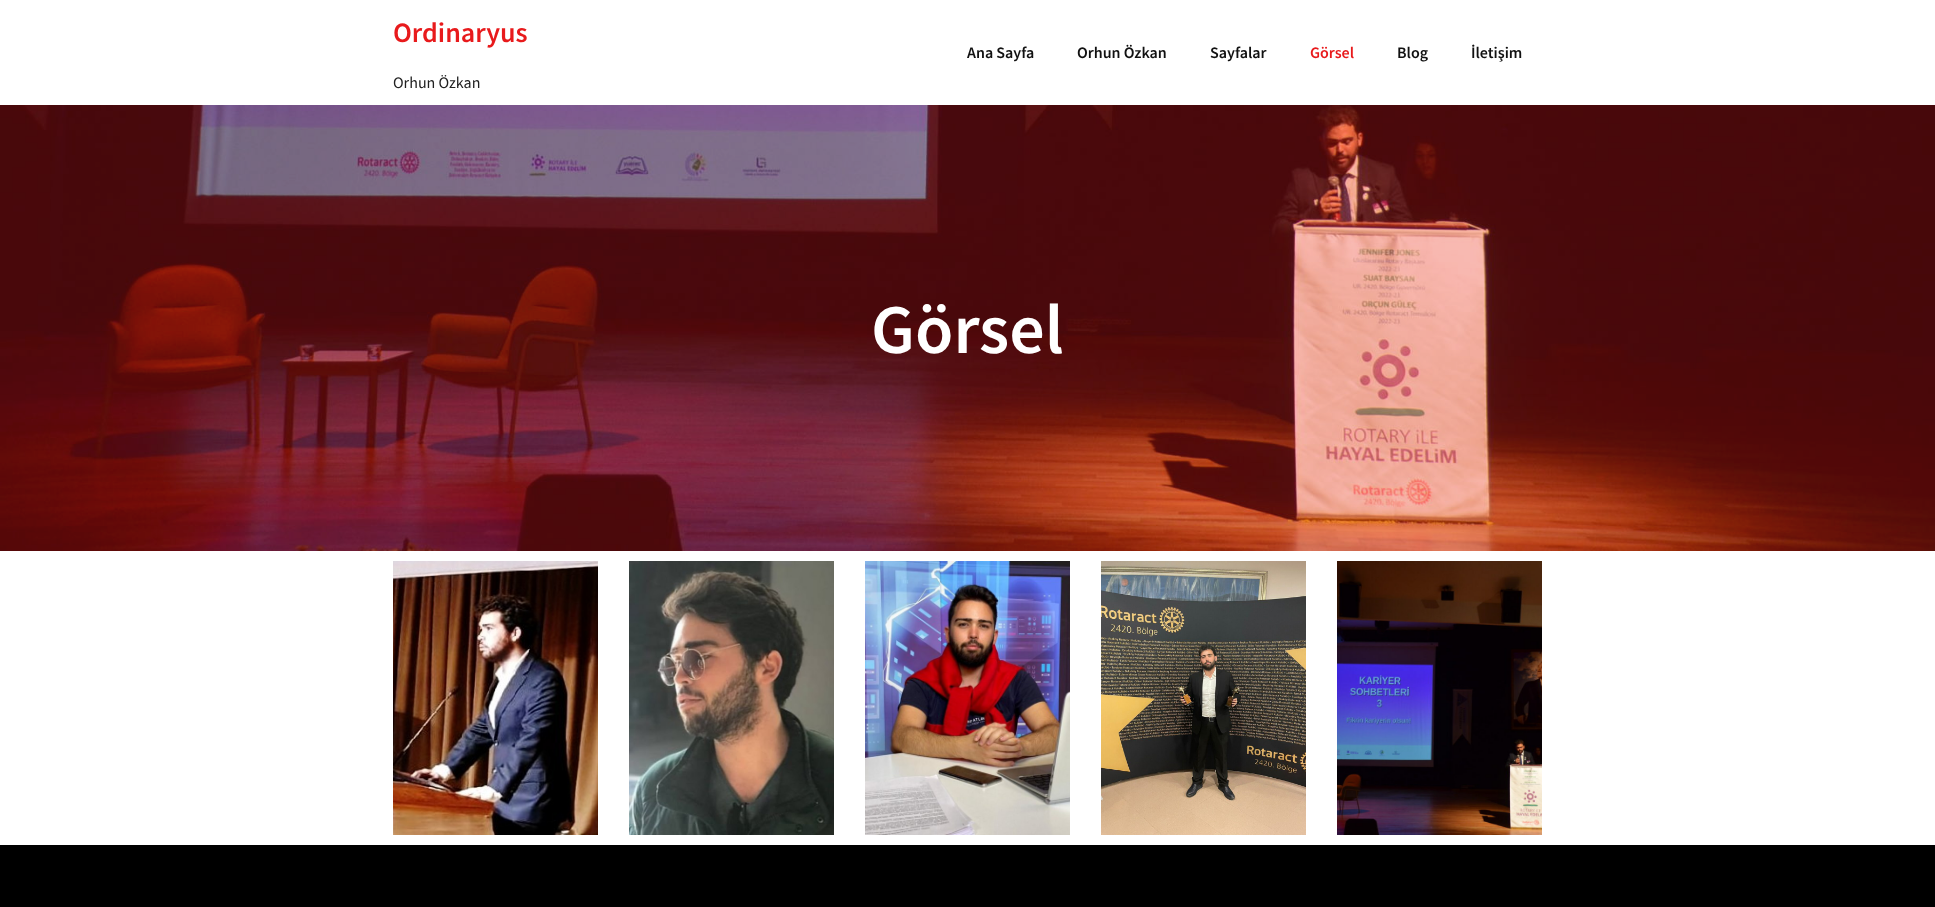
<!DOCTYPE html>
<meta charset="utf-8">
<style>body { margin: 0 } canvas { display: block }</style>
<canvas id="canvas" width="1935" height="907"></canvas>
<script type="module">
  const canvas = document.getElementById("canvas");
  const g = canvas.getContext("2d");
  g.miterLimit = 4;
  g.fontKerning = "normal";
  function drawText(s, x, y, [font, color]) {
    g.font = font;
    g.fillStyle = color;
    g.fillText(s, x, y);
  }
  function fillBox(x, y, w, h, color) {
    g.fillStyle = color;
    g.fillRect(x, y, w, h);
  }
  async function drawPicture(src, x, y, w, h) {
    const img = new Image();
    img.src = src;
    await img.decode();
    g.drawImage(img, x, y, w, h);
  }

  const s1 = ["600 28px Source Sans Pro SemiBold", "#E81A1C"];
  const s2 = ["16px Source Sans Pro", "#212121"];
  const s3 = ["600 16px Source Sans Pro SemiBold", "#111111"];
  const s4 = ["600 16px Source Sans Pro SemiBold", "#E81A1C"];
  const s5 = ["600 70px Source Sans Pro SemiBold", "#FFFFFF"];

  fillBox(0, 0, 1935, 907, "#FFFFFF");
  drawText("Ordinaryus", 393, 42, s1);
  drawText("Orhun Özkan", 393, 88, s2);
  drawText("Ana Sayfa", 967, 58, s3);
  drawText("Orhun Özkan", 1077, 58, s3);
  drawText("Sayfalar", 1210, 58, s3);
  drawText("Görsel", 1310, 58, s4);
  drawText("Blog", 1397, 58, s3);
  drawText("İletişim", 1471, 58, s3);
  await drawPicture("pic1.png", 0, 105, 1935, 446);
  drawText("Görsel", 871, 353, s5);
  await drawPicture("pic2.png", 393, 561, 205, 274);
  await drawPicture("pic3.png", 629, 561, 205, 274);
  await drawPicture("pic4.png", 865, 561, 205, 274);
  await drawPicture("pic5.png", 1101, 561, 205, 274);
  await drawPicture("pic6.png", 1337, 561, 205, 274);
  fillBox(0, 845, 1935, 62, "#000000");
</script>
